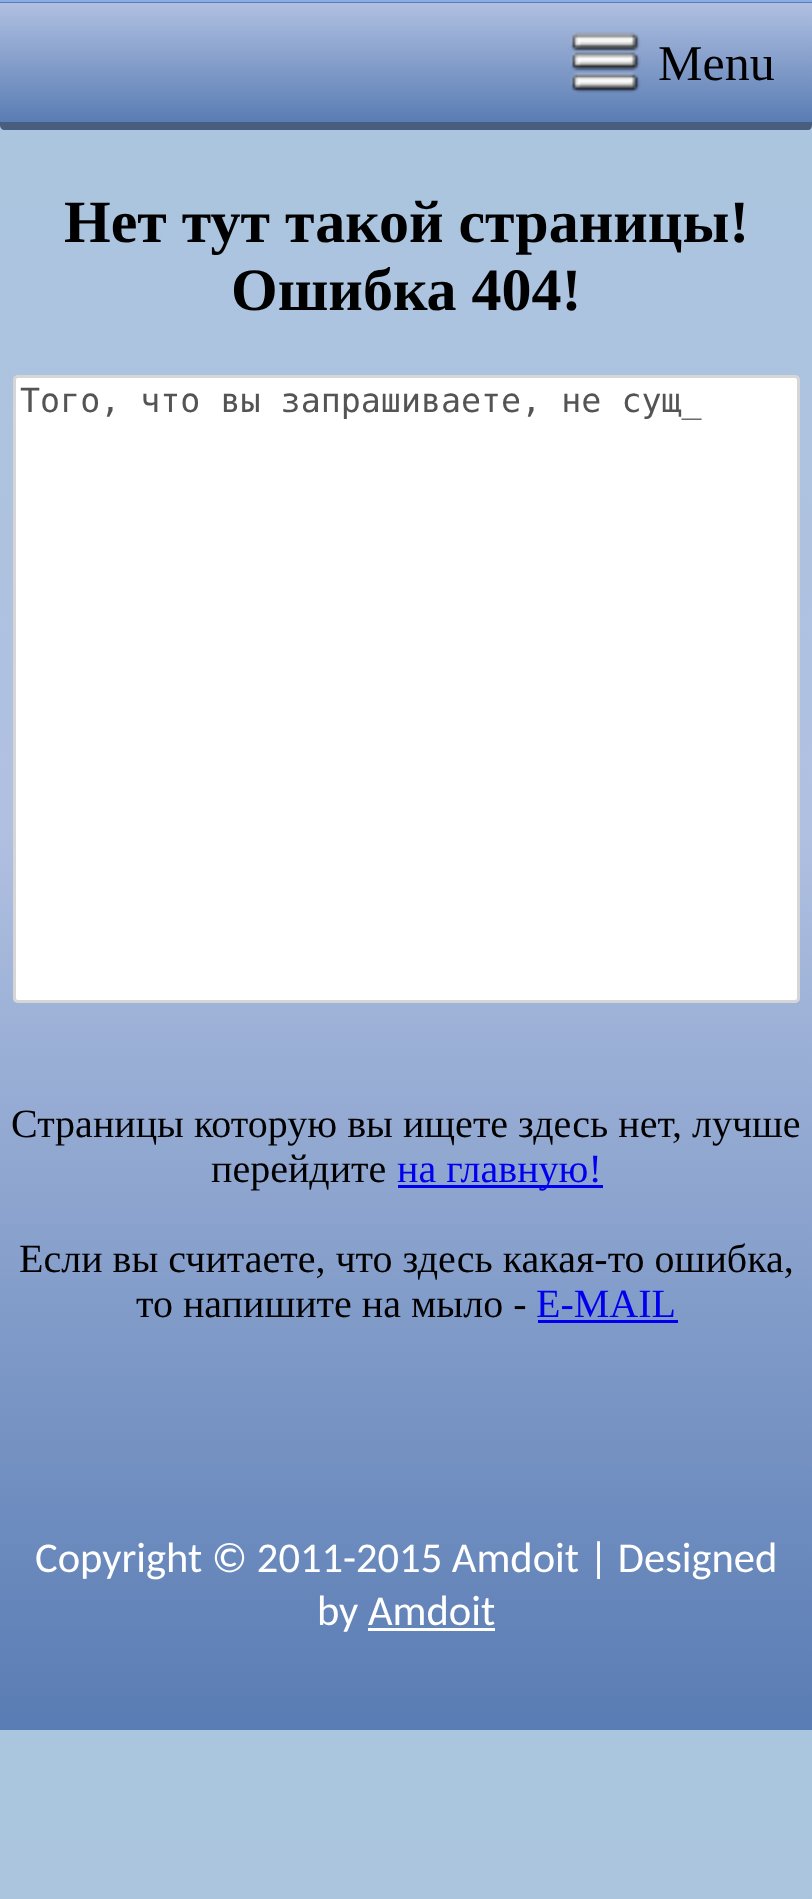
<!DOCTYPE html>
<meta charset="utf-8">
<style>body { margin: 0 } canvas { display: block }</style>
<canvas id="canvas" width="812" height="1899"></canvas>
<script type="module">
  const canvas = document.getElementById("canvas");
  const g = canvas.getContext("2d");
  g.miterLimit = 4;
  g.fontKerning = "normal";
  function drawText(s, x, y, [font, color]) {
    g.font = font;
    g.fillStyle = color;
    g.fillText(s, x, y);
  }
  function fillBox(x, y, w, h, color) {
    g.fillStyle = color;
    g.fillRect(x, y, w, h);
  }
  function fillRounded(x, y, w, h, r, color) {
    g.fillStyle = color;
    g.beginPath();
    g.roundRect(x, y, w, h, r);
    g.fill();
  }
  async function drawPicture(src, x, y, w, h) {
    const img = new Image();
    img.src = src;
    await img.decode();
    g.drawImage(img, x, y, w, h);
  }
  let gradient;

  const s1 = ["50px Liberation Serif", "#000000"];
  const s2 = ["bold 60px Liberation Serif", "#000000"];
  const s3 = ["33.3px DejaVu Sans Mono", "#545454"];
  const s4 = ["40px Liberation Serif", "#000000"];
  const s5 = ["40px Liberation Serif", "#0000EE"];
  const s6 = ["42.5px Carlito", "#FFFFFF"];

  fillBox(0, 0, 812, 1899, "#FFFFFF");
  gradient = g.createLinearGradient(406, 0, 406, 1730);
  gradient.addColorStop(0, "#AAC6DE");
  gradient.addColorStop(0.48, "#B0C0E1");
  gradient.addColorStop(1, "#597CB4");
  g.fillStyle = gradient;
  g.fillRect(0, 125, 812, 1605);
  gradient = g.createLinearGradient(406, 1730, 406, 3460);
  gradient.addColorStop(0, "#AAC6DE");
  gradient.addColorStop(0.48, "#B0C0E1");
  gradient.addColorStop(1, "#597CB4");
  g.fillStyle = gradient;
  g.fillRect(0, 1730, 812, 169);
  gradient = g.createLinearGradient(406, -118, 406, 2.5);
  gradient.addColorStop(0, "#B0C0E1");
  gradient.addColorStop(1, "#597CB4");
  g.fillStyle = gradient;
  g.fillRect(0, 2, 812, 1);
  gradient = g.createLinearGradient(406, 2.5, 406, 123);
  gradient.addColorStop(0, "#B0C0E1");
  gradient.addColorStop(1, "#597CB4");
  g.fillStyle = gradient;
  g.fillRect(0, 3, 812, 119);
  gradient = g.createLinearGradient(406, 122, 406, 243);
  gradient.addColorStop(0, "#B0C0E1");
  gradient.addColorStop(1, "#597CB4");
  g.fillStyle = gradient;
  g.beginPath();
  g.moveTo(0, 123);
  g.lineTo(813, 123);
  g.lineTo(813, 125);
  g.bezierCurveTo(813, 128, 811, 130, 808, 130);
  g.lineTo(5, 130);
  g.bezierCurveTo(2, 130, 0, 128, 0, 125);
  g.closePath();
  g.fill();
  fillBox(0, 0, 812, 2, "#8AADE8");
  g.fillStyle = "#495D7F";
  g.beginPath();
  g.moveTo(812, 125);
  g.lineTo(812, 122);
  g.lineTo(0, 122);
  g.lineTo(0, 125);
  g.bezierCurveTo(0, 128, 2, 130, 5, 130);
  g.lineTo(808, 130);
  g.bezierCurveTo(810, 130, 812, 128, 812, 125);
  g.closePath();
  g.fill();
  await drawPicture("pic1.png", 570, 32, 71, 61);
  drawText("Menu", 658, 80, s1);
  drawText("Нет тут такой страницы!", 64, 242, s2);
  drawText("Ошибка 404!", 231, 310, s2);
  fillRounded(13, 375, 787, 628, 5, "#FFFFFF");
  g.beginPath();
  g.roundRect(14.5, 376.5, 784, 625, 3.5);
  g.strokeStyle = "rgba(118, 118, 118, 0.3)";
  g.lineWidth = 3;
  g.stroke();
  drawText("Того, что вы запрашиваете, не сущ_", 20, 412, s3);
  drawText("Страницы которую вы ищете здесь нет, лучше", 11, 1137, s4);
  drawText("перейдите", 211, 1182, s4);
  fillBox(398, 1185, 205, 3, "#0000EE");
  drawText("на главную!", 397, 1182, s5);
  drawText("Если вы считаете, что здесь какая-то ошибка,", 19, 1272, s4);
  drawText("то напишите на мыло -", 136, 1317, s4);
  drawText("E-MAIL", 536, 1317, s5);
  fillBox(538, 1320, 140, 3, "#0000EE");
  drawText("Copyright © 2011-2015 Amdoit | Designed", 35, 1572, s6);
  drawText("by Amdoit", 317, 1625, s6);
  fillBox(368, 1628, 127, 3, "#FFFFFF");
</script>
